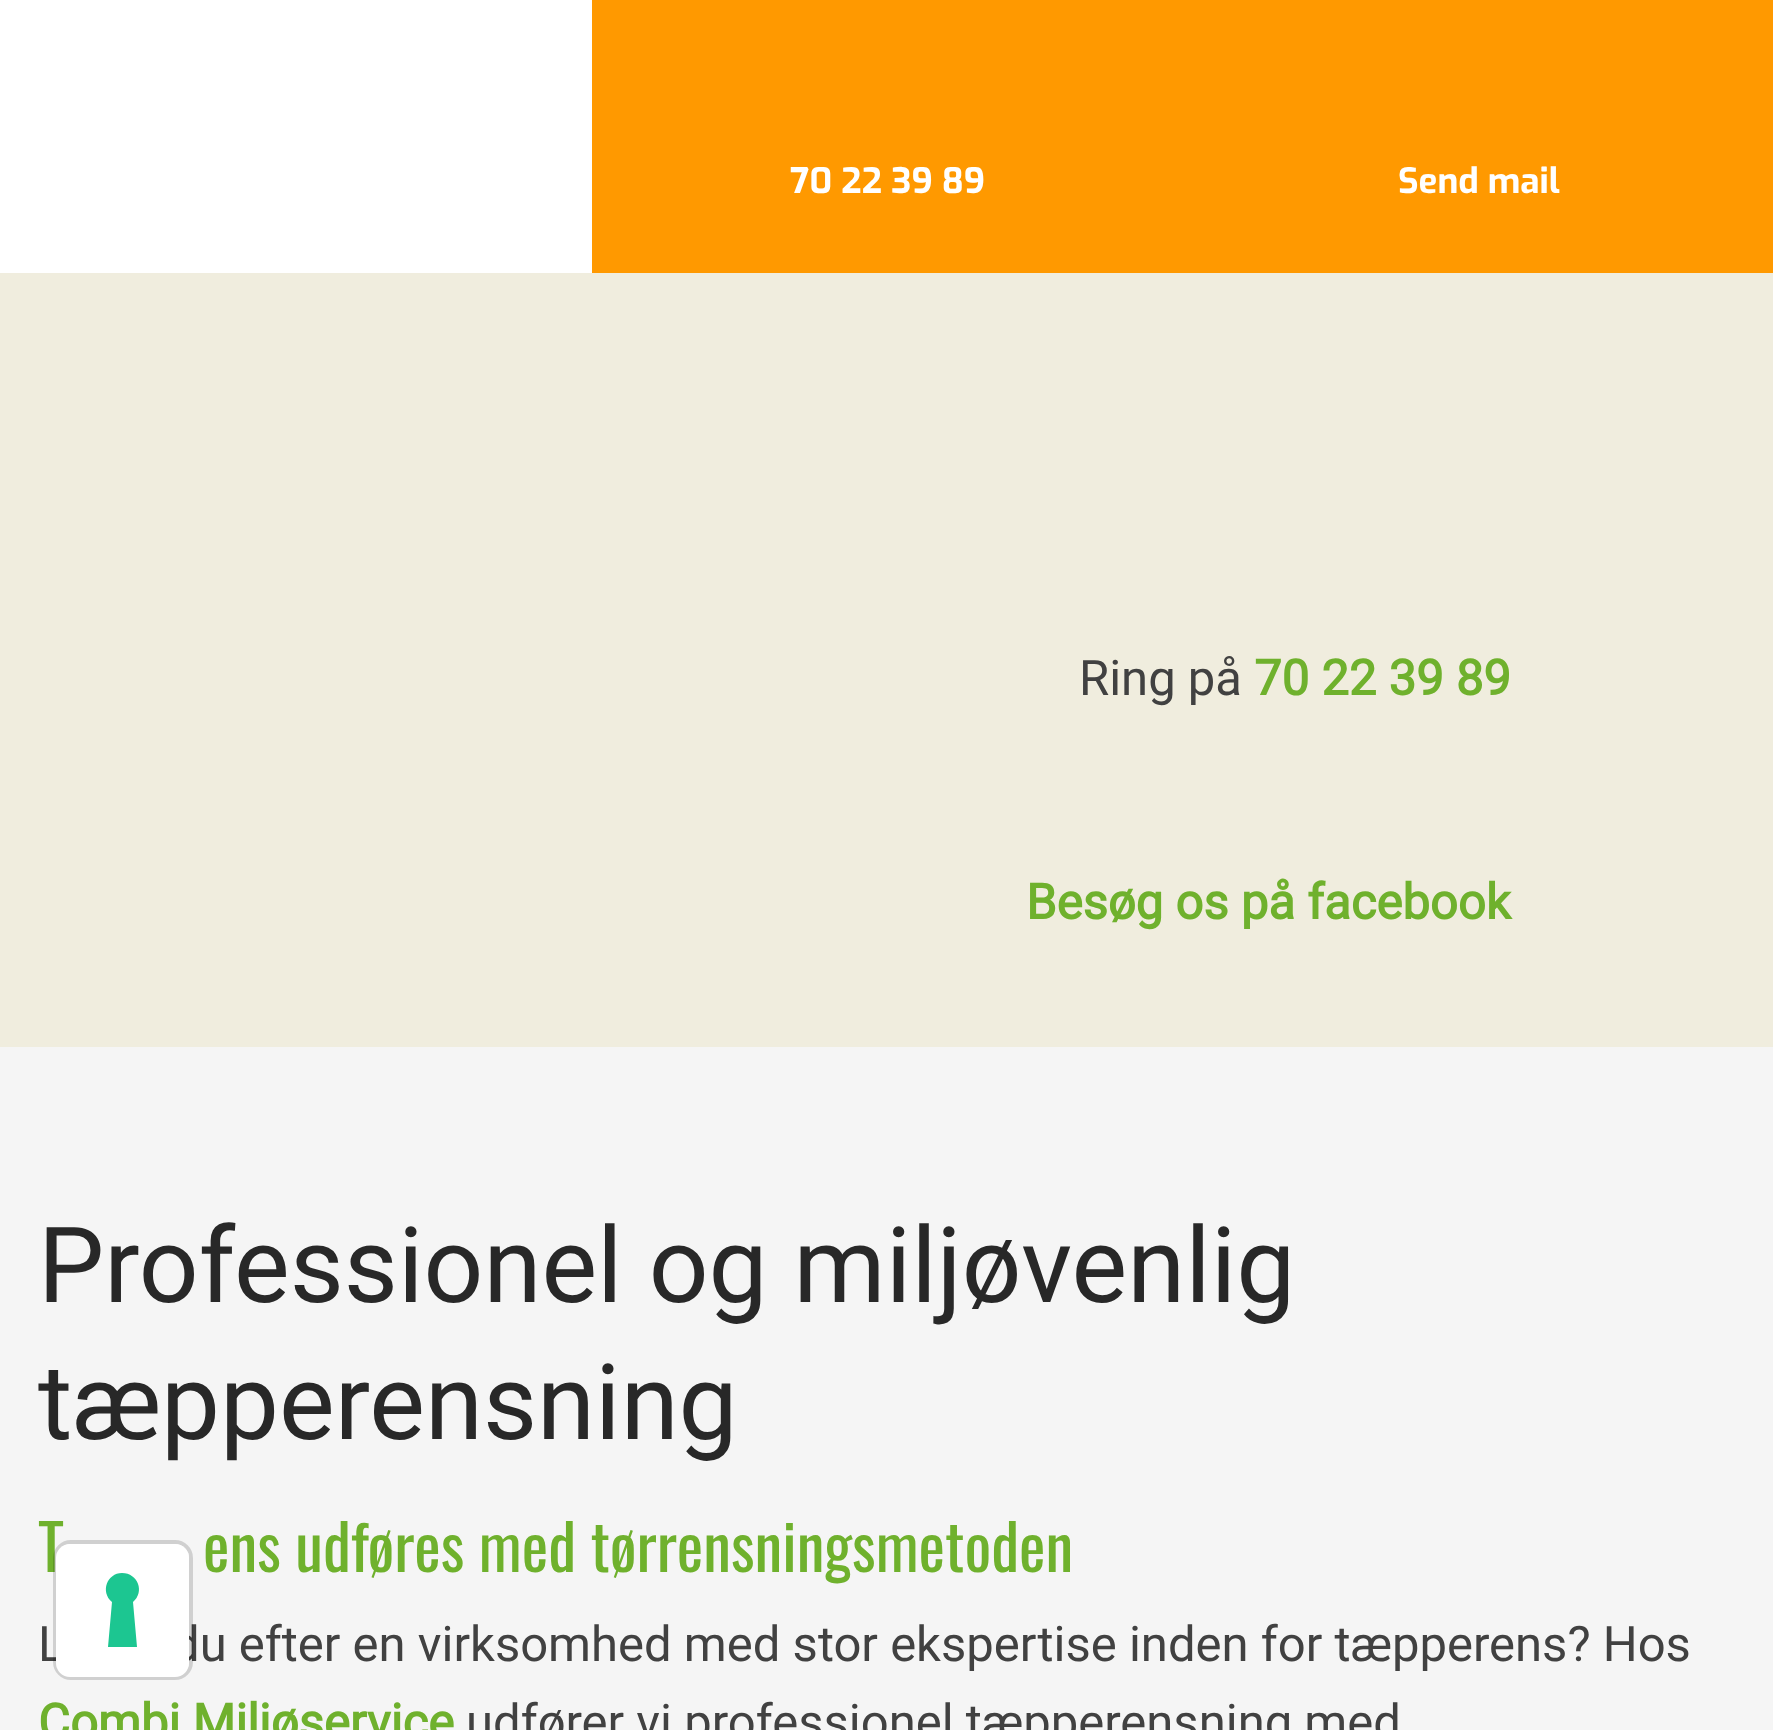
<!DOCTYPE html>
<meta charset="utf-8">
<style>body { margin: 0 } canvas { display: block }</style>
<canvas id="canvas" width="1773" height="1730"></canvas>
<script type="module">
  const canvas = document.getElementById("canvas");
  const g = canvas.getContext("2d");
  g.miterLimit = 4;
  g.fontKerning = "normal";
  function drawText(s, x, y, [font, color]) {
    g.font = font;
    g.fillStyle = color;
    g.fillText(s, x, y);
  }
  function fillBox(x, y, w, h, color) {
    g.fillStyle = color;
    g.fillRect(x, y, w, h);
  }
  function fillRounded(x, y, w, h, r, color) {
    g.fillStyle = color;
    g.beginPath();
    g.roundRect(x, y, w, h, r);
    g.fill();
  }

  const s1 = ["bold 35px Exo", "#FFFFFF"];
  const s2 = ["49px Roboto", "#414141"];
  const s3 = ["bold 49px Roboto", "#6FB12D"];
  const s4 = ["105px Roboto", "#282828"];
  const s5 = ["63px Oswald", "#6FB12D"];

  fillBox(0, 0, 1773, 1730, "#FFFFFF");
  fillBox(0, 273, 1773, 774, "#F0EDDE");
  fillBox(592, 0, 1181, 273, "#FF9900");
  drawText("70 22 39 89", 790, 193, s1);
  drawText("Send mail", 1398, 193, s1);
  drawText("Ring på", 1079, 695, s2);
  drawText("70 22 39 89", 1254, 695, s3);
  drawText("Besøg os på facebook", 1026, 919, s3);
  fillBox(0, 1047, 1773, 683, "#F5F5F5");
  drawText("Professionel og miljøvenlig", 38, 1302, s4);
  drawText("tæpperensning", 38, 1439, s4);
  drawText("T", 38, 1572, s5);
  drawText("ens udføres med tørrensningsmetoden", 203, 1572, s5);
  drawText("L", 38, 1661, s2);
  drawText("du efter en virksomhed med stor ekspertise inden for tæpperens? Hos", 172, 1661, s2);
  drawText("Combi Miljøservice", 38, 1739, s3);
  drawText("udfører vi professionel tæpperensning med", 466, 1739, s2);
  g.beginPath();
  g.roundRect(55, 1542, 136, 136, 16);
  g.strokeStyle = "rgba(0, 0, 0, 0.15)";
  g.lineWidth = 4;
  g.stroke();
  fillRounded(56, 1544, 133, 133, 14, "#FFFFFF");
  g.fillStyle = "#1CC691";
  g.beginPath();
  g.moveTo(122, 1573);
  g.bezierCurveTo(138, 1573, 145, 1592, 133, 1602);
  g.lineTo(137, 1647);
  g.lineTo(108, 1647);
  g.lineTo(112, 1602);
  g.bezierCurveTo(100, 1592, 107, 1573, 122, 1573);
  g.closePath();
  g.fill("evenodd");
</script>
